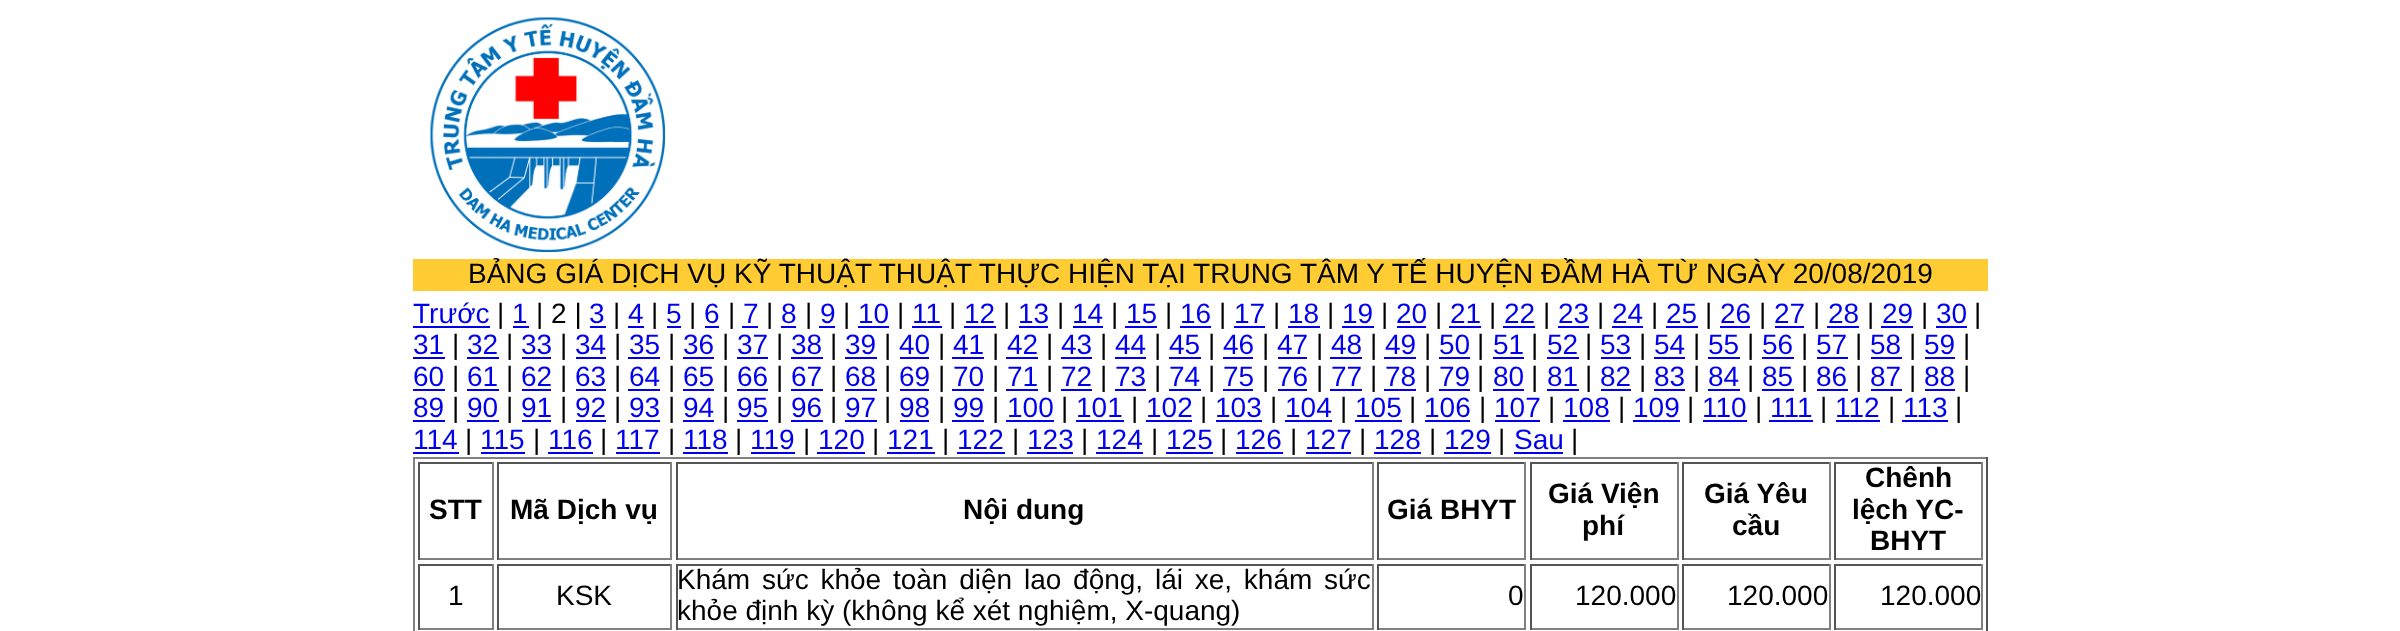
<!DOCTYPE html>
<meta charset="utf-8">
<style>body { margin: 0 } canvas { display: block }</style>
<canvas id="canvas" width="2400" height="631"></canvas>
<script type="module">
  const canvas = document.getElementById("canvas");
  const g = canvas.getContext("2d");
  g.miterLimit = 4;
  g.fontKerning = "normal";
  function drawText(s, x, y, [font, color]) {
    g.font = font;
    g.fillStyle = color;
    g.fillText(s, x, y);
  }
  function fillBox(x, y, w, h, color) {
    g.fillStyle = color;
    g.fillRect(x, y, w, h);
  }
  async function drawPicture(src, x, y, w, h) {
    const img = new Image();
    img.src = src;
    await img.decode();
    g.drawImage(img, x, y, w, h);
  }

  const s1 = ["28px Liberation Sans", "#000000"];
  const s2 = ["28px Liberation Sans", "#0000EE"];
  const s3 = ["bold 28px Liberation Sans", "#000000"];

  fillBox(0, 0, 2400, 631, "#FFFFFF");
  await drawPicture("pic1.png", 430, 17, 235, 235);
  fillBox(413, 259, 1575, 32, "#FFCC33");
  drawText("BẢNG GIÁ DỊCH VỤ KỸ THUẬT THUẬT THỰC HIỆN TẠI TRUNG TÂM Y TẾ HUYỆN ĐẦM HÀ TỪ NGÀY 20/08/2019", 468, 283, s1);
  drawText("Trước", 413, 323, s2);
  fillBox(413, 326, 77, 2, "#0000EE");
  drawText("|", 497, 323, s1);
  drawText("1", 512, 323, s2);
  fillBox(513, 326, 16, 2, "#0000EE");
  drawText("| 2 |", 536, 323, s1);
  drawText("3", 589, 323, s2);
  fillBox(590, 326, 16, 2, "#0000EE");
  drawText("|", 613, 323, s1);
  drawText("4", 628, 323, s2);
  fillBox(628, 326, 16, 2, "#0000EE");
  drawText("|", 651, 323, s1);
  drawText("5", 666, 323, s2);
  fillBox(667, 326, 14, 2, "#0000EE");
  drawText("|", 689, 323, s1);
  drawText("6", 704, 323, s2);
  fillBox(705, 326, 14, 2, "#0000EE");
  drawText("|", 728, 323, s1);
  drawText("7", 743, 323, s2);
  fillBox(742, 326, 16, 2, "#0000EE");
  drawText("|", 766, 323, s1);
  drawText("8", 781, 323, s2);
  fillBox(781, 326, 15, 2, "#0000EE");
  drawText("|", 805, 323, s1);
  drawText("9", 820, 323, s2);
  fillBox(819, 326, 16, 2, "#0000EE");
  drawText("|", 843, 323, s1);
  drawText("10", 858, 323, s2);
  fillBox(858, 326, 31, 2, "#0000EE");
  drawText("|", 897, 323, s1);
  drawText("11", 912, 323, s2);
  fillBox(912, 326, 30, 2, "#0000EE");
  drawText("|", 949, 323, s1);
  drawText("12", 964, 323, s2);
  fillBox(964, 326, 32, 2, "#0000EE");
  drawText("|", 1003, 323, s1);
  drawText("13", 1018, 323, s2);
  fillBox(1019, 326, 29, 2, "#0000EE");
  drawText("|", 1057, 323, s1);
  drawText("14", 1072, 323, s2);
  fillBox(1073, 326, 30, 2, "#0000EE");
  drawText("|", 1111, 323, s1);
  drawText("15", 1126, 323, s2);
  fillBox(1125, 326, 32, 2, "#0000EE");
  drawText("|", 1165, 323, s1);
  drawText("16", 1180, 323, s2);
  fillBox(1180, 326, 31, 2, "#0000EE");
  drawText("|", 1219, 323, s1);
  drawText("17", 1234, 323, s2);
  fillBox(1234, 326, 31, 2, "#0000EE");
  drawText("|", 1273, 323, s1);
  drawText("18", 1288, 323, s2);
  fillBox(1288, 326, 32, 2, "#0000EE");
  drawText("|", 1327, 323, s1);
  drawText("19", 1342, 323, s2);
  fillBox(1342, 326, 32, 2, "#0000EE");
  drawText("|", 1381, 323, s1);
  drawText("20", 1396, 323, s2);
  fillBox(1397, 326, 29, 2, "#0000EE");
  drawText("|", 1435, 323, s1);
  drawText("21", 1450, 323, s2);
  fillBox(1449, 326, 32, 2, "#0000EE");
  drawText("|", 1489, 323, s1);
  drawText("22", 1504, 323, s2);
  fillBox(1503, 326, 32, 2, "#0000EE");
  drawText("|", 1543, 323, s1);
  drawText("23", 1558, 323, s2);
  fillBox(1558, 326, 31, 2, "#0000EE");
  drawText("|", 1597, 323, s1);
  drawText("24", 1612, 323, s2);
  fillBox(1612, 326, 31, 2, "#0000EE");
  drawText("|", 1651, 323, s1);
  drawText("25", 1666, 323, s2);
  fillBox(1666, 326, 32, 2, "#0000EE");
  drawText("|", 1705, 323, s1);
  drawText("26", 1720, 323, s2);
  fillBox(1720, 326, 30, 2, "#0000EE");
  drawText("|", 1759, 323, s1);
  drawText("27", 1774, 323, s2);
  fillBox(1775, 326, 29, 2, "#0000EE");
  drawText("|", 1813, 323, s1);
  drawText("28", 1828, 323, s2);
  fillBox(1827, 326, 32, 2, "#0000EE");
  drawText("|", 1867, 323, s1);
  drawText("29", 1882, 323, s2);
  fillBox(1881, 326, 32, 2, "#0000EE");
  drawText("|", 1921, 323, s1);
  drawText("30", 1936, 323, s2);
  fillBox(1936, 326, 31, 2, "#0000EE");
  drawText("|", 1974, 323, s1);
  drawText("31", 413, 354, s2);
  fillBox(413, 357, 32, 2, "#0000EE");
  drawText("|", 452, 354, s1);
  drawText("32", 467, 354, s2);
  fillBox(467, 357, 32, 2, "#0000EE");
  drawText("|", 506, 354, s1);
  drawText("33", 521, 354, s2);
  fillBox(522, 357, 29, 2, "#0000EE");
  drawText("|", 560, 354, s1);
  drawText("34", 575, 354, s2);
  fillBox(576, 357, 30, 2, "#0000EE");
  drawText("|", 614, 354, s1);
  drawText("35", 629, 354, s2);
  fillBox(628, 357, 32, 2, "#0000EE");
  drawText("|", 668, 354, s1);
  drawText("36", 683, 354, s2);
  fillBox(683, 357, 31, 2, "#0000EE");
  drawText("|", 722, 354, s1);
  drawText("37", 737, 354, s2);
  fillBox(737, 357, 31, 2, "#0000EE");
  drawText("|", 776, 354, s1);
  drawText("38", 791, 354, s2);
  fillBox(791, 357, 32, 2, "#0000EE");
  drawText("|", 830, 354, s1);
  drawText("39", 845, 354, s2);
  fillBox(845, 357, 32, 2, "#0000EE");
  drawText("|", 884, 354, s1);
  drawText("40", 899, 354, s2);
  fillBox(900, 357, 29, 2, "#0000EE");
  drawText("|", 938, 354, s1);
  drawText("41", 953, 354, s2);
  fillBox(952, 357, 32, 2, "#0000EE");
  drawText("|", 992, 354, s1);
  drawText("42", 1007, 354, s2);
  fillBox(1006, 357, 32, 2, "#0000EE");
  drawText("|", 1046, 354, s1);
  drawText("43", 1061, 354, s2);
  fillBox(1061, 357, 31, 2, "#0000EE");
  drawText("|", 1100, 354, s1);
  drawText("44", 1115, 354, s2);
  fillBox(1115, 357, 31, 2, "#0000EE");
  drawText("|", 1154, 354, s1);
  drawText("45", 1169, 354, s2);
  fillBox(1169, 357, 32, 2, "#0000EE");
  drawText("|", 1208, 354, s1);
  drawText("46", 1223, 354, s2);
  fillBox(1223, 357, 30, 2, "#0000EE");
  drawText("|", 1262, 354, s1);
  drawText("47", 1277, 354, s2);
  fillBox(1278, 357, 29, 2, "#0000EE");
  drawText("|", 1316, 354, s1);
  drawText("48", 1331, 354, s2);
  fillBox(1330, 357, 32, 2, "#0000EE");
  drawText("|", 1370, 354, s1);
  drawText("49", 1385, 354, s2);
  fillBox(1384, 357, 32, 2, "#0000EE");
  drawText("|", 1424, 354, s1);
  drawText("50", 1439, 354, s2);
  fillBox(1439, 357, 31, 2, "#0000EE");
  drawText("|", 1477, 354, s1);
  drawText("51", 1493, 354, s2);
  fillBox(1493, 357, 31, 2, "#0000EE");
  drawText("|", 1531, 354, s1);
  drawText("52", 1547, 354, s2);
  fillBox(1547, 357, 32, 2, "#0000EE");
  drawText("|", 1585, 354, s1);
  drawText("53", 1600, 354, s2);
  fillBox(1601, 357, 30, 2, "#0000EE");
  drawText("|", 1639, 354, s1);
  drawText("54", 1654, 354, s2);
  fillBox(1654, 357, 31, 2, "#0000EE");
  drawText("|", 1693, 354, s1);
  drawText("55", 1708, 354, s2);
  fillBox(1708, 357, 32, 2, "#0000EE");
  drawText("|", 1747, 354, s1);
  drawText("56", 1762, 354, s2);
  fillBox(1762, 357, 32, 2, "#0000EE");
  drawText("|", 1801, 354, s1);
  drawText("57", 1816, 354, s2);
  fillBox(1817, 357, 31, 2, "#0000EE");
  drawText("|", 1855, 354, s1);
  drawText("58", 1870, 354, s2);
  fillBox(1871, 357, 31, 2, "#0000EE");
  drawText("|", 1909, 354, s1);
  drawText("59", 1924, 354, s2);
  fillBox(1925, 357, 30, 2, "#0000EE");
  drawText("|", 1963, 354, s1);
  drawText("60", 413, 386, s2);
  fillBox(413, 389, 32, 2, "#0000EE");
  drawText("|", 452, 386, s1);
  drawText("61", 467, 386, s2);
  fillBox(467, 389, 32, 2, "#0000EE");
  drawText("|", 506, 386, s1);
  drawText("62", 521, 386, s2);
  fillBox(522, 389, 29, 2, "#0000EE");
  drawText("|", 560, 386, s1);
  drawText("63", 575, 386, s2);
  fillBox(576, 389, 30, 2, "#0000EE");
  drawText("|", 614, 386, s1);
  drawText("64", 629, 386, s2);
  fillBox(628, 389, 32, 2, "#0000EE");
  drawText("|", 668, 386, s1);
  drawText("65", 683, 386, s2);
  fillBox(683, 389, 31, 2, "#0000EE");
  drawText("|", 722, 386, s1);
  drawText("66", 737, 386, s2);
  fillBox(737, 389, 31, 2, "#0000EE");
  drawText("|", 776, 386, s1);
  drawText("67", 791, 386, s2);
  fillBox(791, 389, 32, 2, "#0000EE");
  drawText("|", 830, 386, s1);
  drawText("68", 845, 386, s2);
  fillBox(845, 389, 32, 2, "#0000EE");
  drawText("|", 884, 386, s1);
  drawText("69", 899, 386, s2);
  fillBox(900, 389, 29, 2, "#0000EE");
  drawText("|", 938, 386, s1);
  drawText("70", 953, 386, s2);
  fillBox(952, 389, 32, 2, "#0000EE");
  drawText("|", 992, 386, s1);
  drawText("71", 1007, 386, s2);
  fillBox(1006, 389, 32, 2, "#0000EE");
  drawText("|", 1046, 386, s1);
  drawText("72", 1061, 386, s2);
  fillBox(1061, 389, 31, 2, "#0000EE");
  drawText("|", 1100, 386, s1);
  drawText("73", 1115, 386, s2);
  fillBox(1115, 389, 31, 2, "#0000EE");
  drawText("|", 1154, 386, s1);
  drawText("74", 1169, 386, s2);
  fillBox(1169, 389, 32, 2, "#0000EE");
  drawText("|", 1208, 386, s1);
  drawText("75", 1223, 386, s2);
  fillBox(1223, 389, 30, 2, "#0000EE");
  drawText("|", 1262, 386, s1);
  drawText("76", 1277, 386, s2);
  fillBox(1278, 389, 29, 2, "#0000EE");
  drawText("|", 1316, 386, s1);
  drawText("77", 1331, 386, s2);
  fillBox(1330, 389, 32, 2, "#0000EE");
  drawText("|", 1370, 386, s1);
  drawText("78", 1385, 386, s2);
  fillBox(1384, 389, 32, 2, "#0000EE");
  drawText("|", 1424, 386, s1);
  drawText("79", 1439, 386, s2);
  fillBox(1439, 389, 31, 2, "#0000EE");
  drawText("|", 1477, 386, s1);
  drawText("80", 1493, 386, s2);
  fillBox(1493, 389, 31, 2, "#0000EE");
  drawText("|", 1531, 386, s1);
  drawText("81", 1547, 386, s2);
  fillBox(1547, 389, 32, 2, "#0000EE");
  drawText("|", 1585, 386, s1);
  drawText("82", 1600, 386, s2);
  fillBox(1601, 389, 30, 2, "#0000EE");
  drawText("|", 1639, 386, s1);
  drawText("83", 1654, 386, s2);
  fillBox(1654, 389, 31, 2, "#0000EE");
  drawText("|", 1693, 386, s1);
  drawText("84", 1708, 386, s2);
  fillBox(1708, 389, 32, 2, "#0000EE");
  drawText("|", 1747, 386, s1);
  drawText("85", 1762, 386, s2);
  fillBox(1762, 389, 32, 2, "#0000EE");
  drawText("|", 1801, 386, s1);
  drawText("86", 1816, 386, s2);
  fillBox(1817, 389, 31, 2, "#0000EE");
  drawText("|", 1855, 386, s1);
  drawText("87", 1870, 386, s2);
  fillBox(1871, 389, 31, 2, "#0000EE");
  drawText("|", 1909, 386, s1);
  drawText("88", 1924, 386, s2);
  fillBox(1925, 389, 30, 2, "#0000EE");
  drawText("|", 1963, 386, s1);
  drawText("89", 413, 417, s2);
  fillBox(413, 420, 32, 2, "#0000EE");
  drawText("|", 452, 417, s1);
  drawText("90", 467, 417, s2);
  fillBox(467, 420, 32, 2, "#0000EE");
  drawText("|", 506, 417, s1);
  drawText("91", 521, 417, s2);
  fillBox(522, 420, 29, 2, "#0000EE");
  drawText("|", 560, 417, s1);
  drawText("92", 575, 417, s2);
  fillBox(576, 420, 30, 2, "#0000EE");
  drawText("|", 614, 417, s1);
  drawText("93", 629, 417, s2);
  fillBox(628, 420, 32, 2, "#0000EE");
  drawText("|", 668, 417, s1);
  drawText("94", 683, 417, s2);
  fillBox(683, 420, 31, 2, "#0000EE");
  drawText("|", 722, 417, s1);
  drawText("95", 737, 417, s2);
  fillBox(737, 420, 31, 2, "#0000EE");
  drawText("|", 776, 417, s1);
  drawText("96", 791, 417, s2);
  fillBox(791, 420, 32, 2, "#0000EE");
  drawText("|", 830, 417, s1);
  drawText("97", 845, 417, s2);
  fillBox(845, 420, 32, 2, "#0000EE");
  drawText("|", 884, 417, s1);
  drawText("98", 899, 417, s2);
  fillBox(900, 420, 29, 2, "#0000EE");
  drawText("|", 938, 417, s1);
  drawText("99", 953, 417, s2);
  fillBox(952, 420, 32, 2, "#0000EE");
  drawText("|", 992, 417, s1);
  drawText("100", 1007, 417, s2);
  fillBox(1006, 420, 48, 2, "#0000EE");
  drawText("|", 1061, 417, s1);
  drawText("101", 1076, 417, s2);
  fillBox(1076, 420, 48, 2, "#0000EE");
  drawText("|", 1131, 417, s1);
  drawText("102", 1146, 417, s2);
  fillBox(1146, 420, 46, 2, "#0000EE");
  drawText("|", 1200, 417, s1);
  drawText("103", 1215, 417, s2);
  fillBox(1216, 420, 46, 2, "#0000EE");
  drawText("|", 1270, 417, s1);
  drawText("104", 1285, 417, s2);
  fillBox(1285, 420, 47, 2, "#0000EE");
  drawText("|", 1340, 417, s1);
  drawText("105", 1355, 417, s2);
  fillBox(1355, 420, 47, 2, "#0000EE");
  drawText("|", 1409, 417, s1);
  drawText("106", 1424, 417, s2);
  fillBox(1425, 420, 45, 2, "#0000EE");
  drawText("|", 1479, 417, s1);
  drawText("107", 1494, 417, s2);
  fillBox(1495, 420, 45, 2, "#0000EE");
  drawText("|", 1548, 417, s1);
  drawText("108", 1563, 417, s2);
  fillBox(1563, 420, 47, 2, "#0000EE");
  drawText("|", 1618, 417, s1);
  drawText("109", 1633, 417, s2);
  fillBox(1633, 420, 47, 2, "#0000EE");
  drawText("|", 1687, 417, s1);
  drawText("110", 1702, 417, s2);
  fillBox(1703, 420, 44, 2, "#0000EE");
  drawText("|", 1755, 417, s1);
  drawText("111", 1770, 417, s2);
  fillBox(1769, 420, 44, 2, "#0000EE");
  drawText("|", 1820, 417, s1);
  drawText("112", 1835, 417, s2);
  fillBox(1836, 420, 44, 2, "#0000EE");
  drawText("|", 1888, 417, s1);
  drawText("113", 1903, 417, s2);
  fillBox(1902, 420, 46, 2, "#0000EE");
  drawText("|", 1955, 417, s1);
  drawText("114", 413, 449, s2);
  fillBox(413, 452, 46, 2, "#0000EE");
  drawText("|", 465, 449, s1);
  drawText("115", 480, 449, s2);
  fillBox(481, 452, 44, 2, "#0000EE");
  drawText("|", 533, 449, s1);
  drawText("116", 548, 449, s2);
  fillBox(548, 452, 45, 2, "#0000EE");
  drawText("|", 600, 449, s1);
  drawText("117", 615, 449, s2);
  fillBox(616, 452, 44, 2, "#0000EE");
  drawText("|", 668, 449, s1);
  drawText("118", 683, 449, s2);
  fillBox(683, 452, 45, 2, "#0000EE");
  drawText("|", 735, 449, s1);
  drawText("119", 750, 449, s2);
  fillBox(751, 452, 44, 2, "#0000EE");
  drawText("|", 803, 449, s1);
  drawText("120", 818, 449, s2);
  fillBox(817, 452, 48, 2, "#0000EE");
  drawText("|", 872, 449, s1);
  drawText("121", 887, 449, s2);
  fillBox(887, 452, 48, 2, "#0000EE");
  drawText("|", 942, 449, s1);
  drawText("122", 957, 449, s2);
  fillBox(957, 452, 48, 2, "#0000EE");
  drawText("|", 1012, 449, s1);
  drawText("123", 1027, 449, s2);
  fillBox(1027, 452, 46, 2, "#0000EE");
  drawText("|", 1081, 449, s1);
  drawText("124", 1096, 449, s2);
  fillBox(1096, 452, 47, 2, "#0000EE");
  drawText("|", 1151, 449, s1);
  drawText("125", 1166, 449, s2);
  fillBox(1166, 452, 47, 2, "#0000EE");
  drawText("|", 1220, 449, s1);
  drawText("126", 1235, 449, s2);
  fillBox(1236, 452, 47, 2, "#0000EE");
  drawText("|", 1290, 449, s1);
  drawText("127", 1305, 449, s2);
  fillBox(1306, 452, 45, 2, "#0000EE");
  drawText("|", 1359, 449, s1);
  drawText("128", 1374, 449, s2);
  fillBox(1374, 452, 47, 2, "#0000EE");
  drawText("|", 1429, 449, s1);
  drawText("129", 1444, 449, s2);
  fillBox(1444, 452, 47, 2, "#0000EE");
  drawText("|", 1498, 449, s1);
  drawText("Sau", 1514, 449, s2);
  fillBox(1514, 452, 49, 2, "#0000EE");
  drawText("|", 1571, 449, s1);
  fillBox(413, 457, 1575, 2, "#808080");
  fillBox(1986, 457, 2, 174, "#555555");
  fillBox(413, 457, 2, 174, "#808080");
  fillBox(418, 462, 76, 2, "#555555");
  fillBox(492, 462, 2, 98, "#808080");
  fillBox(418, 558, 76, 2, "#808080");
  fillBox(418, 462, 2, 98, "#555555");
  drawText("STT", 429, 519, s3);
  fillBox(497, 462, 175, 2, "#555555");
  fillBox(670, 462, 2, 98, "#808080");
  fillBox(497, 558, 175, 2, "#808080");
  fillBox(497, 462, 2, 98, "#555555");
  drawText("Mã Dịch vụ", 510, 519, s3);
  fillBox(676, 462, 698, 2, "#555555");
  fillBox(1372, 462, 2, 98, "#808080");
  fillBox(676, 558, 698, 2, "#808080");
  fillBox(676, 462, 2, 98, "#555555");
  drawText("Nội dung", 963, 519, s3);
  fillBox(1377, 462, 149, 2, "#555555");
  fillBox(1524, 462, 2, 98, "#808080");
  fillBox(1377, 558, 149, 2, "#808080");
  fillBox(1377, 462, 2, 98, "#555555");
  drawText("Giá BHYT", 1387, 519, s3);
  fillBox(1530, 462, 148, 2, "#555555");
  fillBox(1677, 462, 2, 98, "#808080");
  fillBox(1530, 558, 148, 2, "#808080");
  fillBox(1530, 462, 2, 98, "#555555");
  drawText("Giá Viện", 1548, 503, s3);
  drawText("phí", 1582, 535, s3);
  fillBox(1682, 462, 149, 2, "#555555");
  fillBox(1829, 462, 2, 98, "#808080");
  fillBox(1682, 558, 149, 2, "#808080");
  fillBox(1682, 462, 2, 98, "#555555");
  drawText("Giá Yêu", 1704, 503, s3);
  drawText("cầu", 1732, 535, s3);
  fillBox(1834, 462, 149, 2, "#555555");
  fillBox(1981, 462, 2, 98, "#808080");
  fillBox(1834, 558, 149, 2, "#808080");
  fillBox(1834, 462, 2, 98, "#555555");
  drawText("Chênh", 1865, 487, s3);
  drawText("lệch YC-", 1852, 519, s3);
  drawText("BHYT", 1870, 550, s3);
  fillBox(418, 564, 76, 2, "#555555");
  fillBox(492, 564, 2, 66, "#808080");
  fillBox(418, 628, 76, 2, "#808080");
  fillBox(418, 564, 2, 66, "#555555");
  drawText("1", 448, 605, s1);
  fillBox(497, 564, 175, 2, "#555555");
  fillBox(670, 564, 2, 66, "#808080");
  fillBox(497, 628, 175, 2, "#808080");
  fillBox(497, 564, 2, 66, "#555555");
  drawText("KSK", 556, 605, s1);
  fillBox(676, 564, 698, 2, "#555555");
  fillBox(1372, 564, 2, 66, "#808080");
  fillBox(676, 628, 698, 2, "#808080");
  fillBox(676, 564, 2, 66, "#555555");
  g.wordSpacing = "4px";
  drawText("Khám sức khỏe toàn diện lao động, lái xe, khám sức", 677, 589, s1);
  g.wordSpacing = "0px";
  drawText("khỏe định kỳ (không kể xét nghiệm, X-quang)", 677, 620, s1);
  fillBox(1377, 564, 149, 2, "#555555");
  fillBox(1524, 564, 2, 66, "#808080");
  fillBox(1377, 628, 149, 2, "#808080");
  fillBox(1377, 564, 2, 66, "#555555");
  drawText("0", 1508, 605, s1);
  fillBox(1530, 564, 148, 2, "#555555");
  fillBox(1677, 564, 2, 66, "#808080");
  fillBox(1530, 628, 148, 2, "#808080");
  fillBox(1530, 564, 2, 66, "#555555");
  drawText("120.000", 1575, 605, s1);
  fillBox(1682, 564, 149, 2, "#555555");
  fillBox(1829, 564, 2, 66, "#808080");
  fillBox(1682, 628, 149, 2, "#808080");
  fillBox(1682, 564, 2, 66, "#555555");
  drawText("120.000", 1727, 605, s1);
  fillBox(1834, 564, 149, 2, "#555555");
  fillBox(1981, 564, 2, 66, "#808080");
  fillBox(1834, 628, 149, 2, "#808080");
  fillBox(1834, 564, 2, 66, "#555555");
  drawText("120.000", 1880, 605, s1);
</script>
